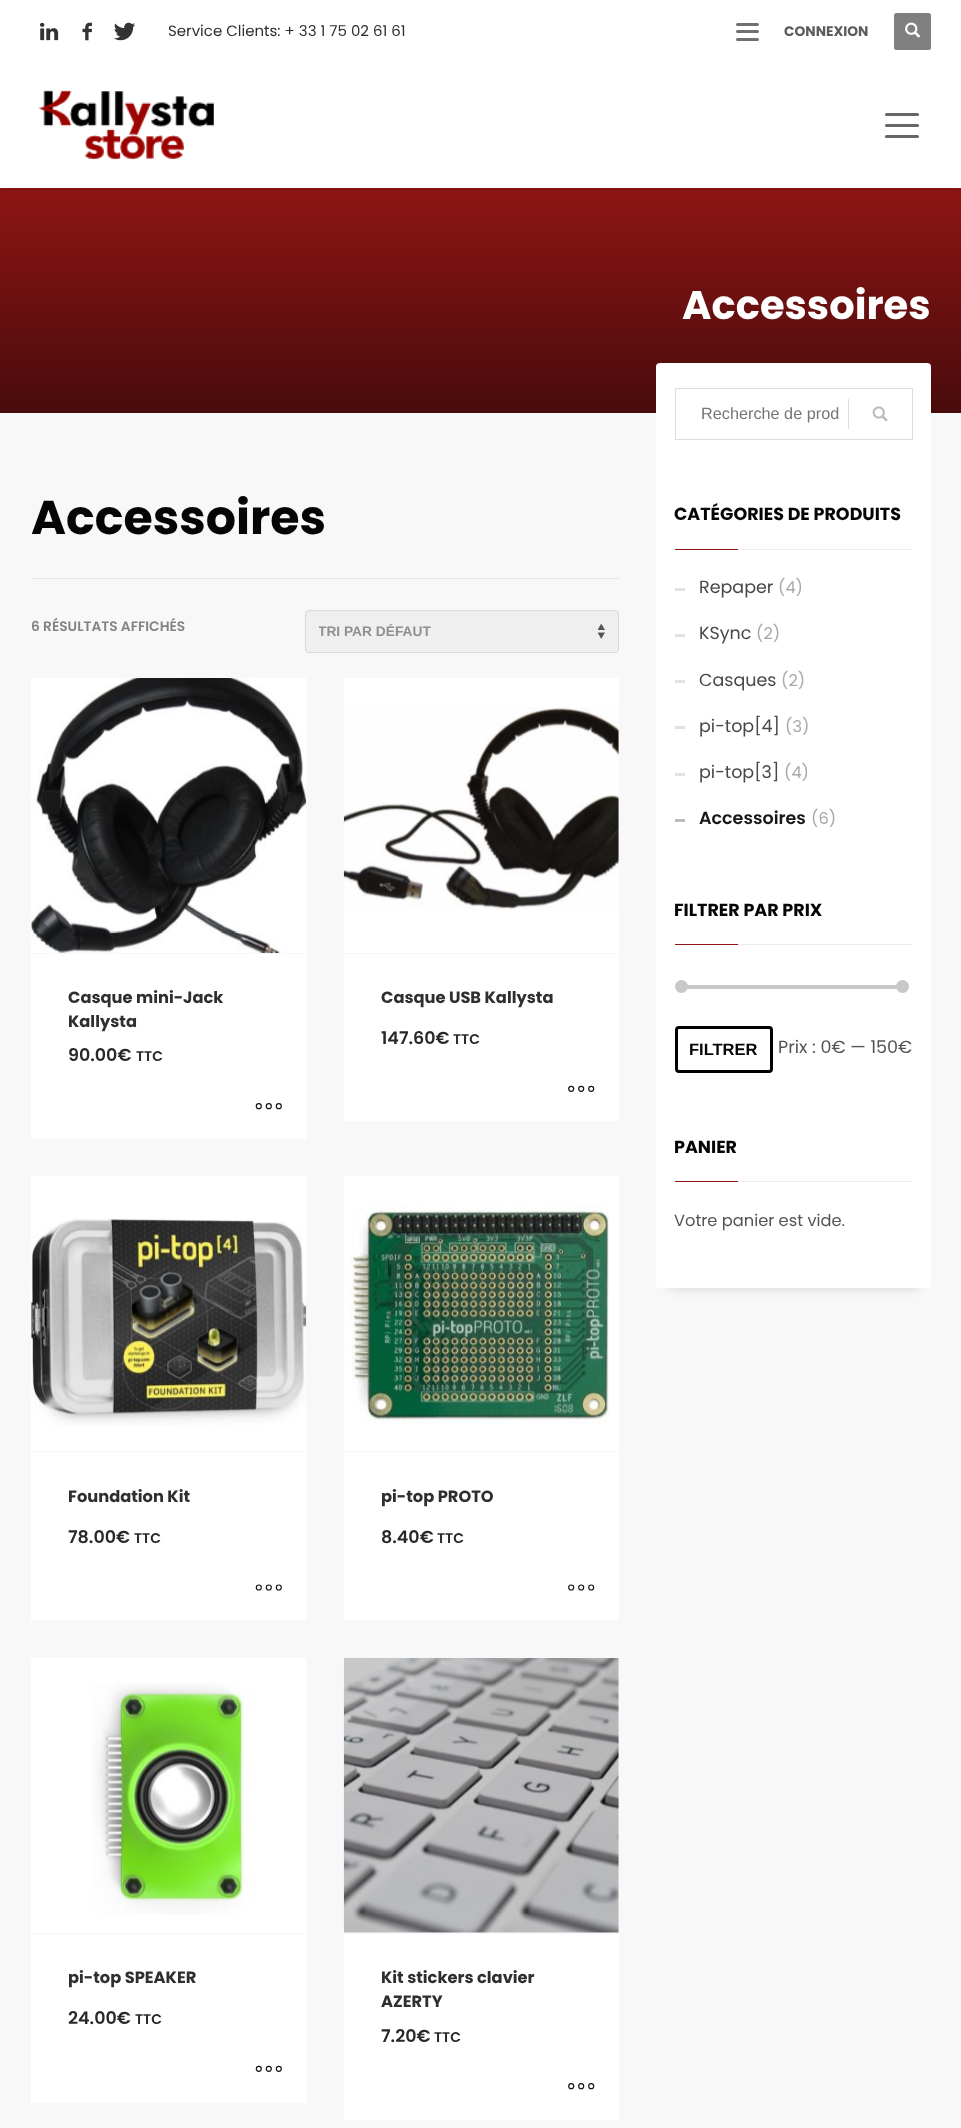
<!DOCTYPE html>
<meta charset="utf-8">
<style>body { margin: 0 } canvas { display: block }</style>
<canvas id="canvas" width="961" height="2128"></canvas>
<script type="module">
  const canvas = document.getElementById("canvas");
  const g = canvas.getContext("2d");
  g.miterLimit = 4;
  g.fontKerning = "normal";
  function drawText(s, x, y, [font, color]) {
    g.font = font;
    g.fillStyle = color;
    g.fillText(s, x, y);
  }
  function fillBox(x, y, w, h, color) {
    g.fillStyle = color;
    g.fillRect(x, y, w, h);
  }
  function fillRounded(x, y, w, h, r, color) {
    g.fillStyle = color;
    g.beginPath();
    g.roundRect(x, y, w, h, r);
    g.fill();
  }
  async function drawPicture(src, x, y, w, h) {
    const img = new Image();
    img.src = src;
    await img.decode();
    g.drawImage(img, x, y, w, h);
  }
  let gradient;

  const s1 = ["15px Poppins", "#2F2F2F"];
  const s2 = ["bold 13.75px Poppins", "#5C5C5C"];
  const s3 = ["bold 40px Poppins", "#FFFFFF"];
  const s4 = ["bold 47.5px Poppins", "#050505"];
  const s5 = ["600 13.75px Poppins", "#838383"];
  const s6 = ["bold 13.75px Liberation Sans", "#909090"];
  const s7 = ["bold 16.25px Poppins", "#2F2F2F"];
  const s8 = ["600 17.5px Poppins", "#282828"];
  const s9 = ["600 14px Poppins", "#282828"];
  const s10 = ["16.25px Liberation Sans", "#757575"];
  const s11 = ["bold 17.5px Poppins", "#050505"];
  const s12 = ["17.5px Poppins", "#484848"];
  const s13 = ["16.25px Poppins", "#A9A9A9"];
  const s14 = ["600 17.5px Poppins", "#181818"];
  const s15 = ["bold 16.5px Liberation Sans", "#050505"];
  const s16 = ["17.5px Poppins", "#535353"];
  const s17 = ["16.25px Poppins", "#535353"];

  fillBox(0, 0, 961, 2128, "#F8F8F8");
  gradient = g.createLinearGradient(481, 187, 481, 413);
  gradient.addColorStop(0, "#8F1515");
  gradient.addColorStop(1, "#480B0B");
  g.fillStyle = gradient;
  g.fillRect(0, 188, 961, 225);
  g.fillStyle = "rgba(0, 0, 0, 0.25)";
  g.filter = "blur(3px)";
  g.beginPath();
  g.rect(0, 0, 961, 188);
  g.fill();
  g.filter = "none";
  fillBox(0, 0, 961, 188, "#FFFFFF");
  await drawPicture("pic1.png", 40, 22, 19, 19);
  await drawPicture("pic2.png", 82, 22, 10, 19);
  await drawPicture("pic3.png", 114, 22, 22, 19);
  drawText("Service Clients: + 33 1 75 02 61 61", 168, 36, s1);
  fillRounded(736, 38, 23, 3, 1.5, "#707070");
  fillRounded(736, 30, 23, 3, 1.5, "#707070");
  fillRounded(736, 23, 23, 3, 1.5, "#707070");
  drawText("CONNEXION", 784, 36, s2);
  fillRounded(894, 13, 37, 37, 2.5, "#808080");
  await drawPicture("pic4.png", 905, 22, 15, 16);
  await drawPicture("pic5.png", 38, 90, 176, 70);
  fillRounded(885, 113, 34, 3, 1.5, "#666666");
  fillRounded(885, 124, 34, 3, 1.5, "#666666");
  fillRounded(885, 135, 34, 3, 1.5, "#666666");
  drawText("Accessoires", 682, 319, s3);
  fillBox(31, 578, 588, 1, "#E6E6E6");
  drawText("Accessoires", 31, 534, s4);
  drawText("6 RÉSULTATS AFFICHÉS", 31, 631, s5);
  fillRounded(305, 610, 314, 43, 4, "#EFEFEF");
  await drawPicture("pic6.png", 598, 624, 7, 15);
  g.beginPath();
  g.roundRect(305.5, 610.5, 313, 42, 3.5);
  g.strokeStyle = "#D9D9D9";
  g.stroke();
  g.save();
  g.beginPath();
  g.rect(319, 624, 267, 15);
  g.clip();
  drawText("TRI PAR DÉFAUT", 318, 636, s6);
  g.restore();
  fillBox(31, 678, 275, 461, "#FFFFFF");
  fillBox(31, 953, 275, 1, "#F7F7F7");
  await drawPicture("pic7.png", 31, 678, 276, 275);
  drawText("Casque mini-Jack", 68, 1003, s7);
  drawText("Kallysta", 68, 1027, s7);
  drawText("90.00€", 68, 1061, s8);
  drawText("TTC", 136, 1061, s9);
  g.beginPath();
  g.arc(258.8, 1106.2, 2.5, 0, Math.PI * 2);
  g.strokeStyle = "#141414";
  g.lineWidth = 1.2;
  g.stroke();
  g.beginPath();
  g.arc(268.8, 1106.2, 2.5, 0, Math.PI * 2);
  g.stroke();
  g.beginPath();
  g.arc(278.8, 1106.2, 2.5, 0, Math.PI * 2);
  g.stroke();
  fillBox(344, 678, 275, 443, "#FFFFFF");
  fillBox(344, 953, 275, 1, "#F7F7F7");
  await drawPicture("pic8.png", 343, 707, 276, 203);
  drawText("Casque USB Kallysta", 381, 1003, s7);
  drawText("147.60€", 381, 1044, s8);
  drawText("TTC", 453, 1044, s9);
  g.beginPath();
  g.arc(571.2, 1088.8, 2.5, 0, Math.PI * 2);
  g.stroke();
  g.beginPath();
  g.arc(581.2, 1088.8, 2.5, 0, Math.PI * 2);
  g.stroke();
  g.beginPath();
  g.arc(591.2, 1088.8, 2.5, 0, Math.PI * 2);
  g.stroke();
  fillBox(31, 1176, 275, 444, "#FFFFFF");
  fillBox(31, 1451, 275, 1, "#F7F7F7");
  await drawPicture("pic9.png", 31, 1218, 276, 208);
  drawText("Foundation Kit", 68, 1502, s7);
  drawText("78.00€", 68, 1543, s8);
  drawText("TTC", 134, 1543, s9);
  g.beginPath();
  g.arc(258.8, 1587.5, 2.5, 0, Math.PI * 2);
  g.stroke();
  g.beginPath();
  g.arc(268.8, 1587.5, 2.5, 0, Math.PI * 2);
  g.stroke();
  g.beginPath();
  g.arc(278.8, 1587.5, 2.5, 0, Math.PI * 2);
  g.stroke();
  fillBox(344, 1176, 275, 444, "#FFFFFF");
  fillBox(344, 1451, 275, 1, "#F7F7F7");
  await drawPicture("pic10.png", 344, 1205, 265, 220);
  drawText("pi-top PROTO", 381, 1502, s7);
  drawText("8.40€", 381, 1543, s8);
  drawText("TTC", 437, 1543, s9);
  g.beginPath();
  g.arc(571.2, 1587.5, 2.5, 0, Math.PI * 2);
  g.stroke();
  g.beginPath();
  g.arc(581.2, 1587.5, 2.5, 0, Math.PI * 2);
  g.stroke();
  g.beginPath();
  g.arc(591.2, 1587.5, 2.5, 0, Math.PI * 2);
  g.stroke();
  fillBox(31, 1658, 275, 445, "#FFFFFF");
  fillBox(31, 1933, 275, 1, "#F7F7F7");
  await drawPicture("pic11.png", 92, 1683, 159, 232);
  drawText("pi-top SPEAKER", 68, 1983, s7);
  drawText("24.00€", 68, 2024, s8);
  drawText("TTC", 135, 2024, s9);
  g.beginPath();
  g.arc(258.8, 2068.8, 2.5, 0, Math.PI * 2);
  g.stroke();
  g.beginPath();
  g.arc(268.8, 2068.8, 2.5, 0, Math.PI * 2);
  g.stroke();
  g.beginPath();
  g.arc(278.8, 2068.8, 2.5, 0, Math.PI * 2);
  g.stroke();
  fillBox(344, 1658, 275, 462, "#FFFFFF");
  fillBox(344, 1933, 275, 1, "#F7F7F7");
  await drawPicture("pic12.png", 343, 1658, 276, 275);
  drawText("Kit stickers clavier", 381, 1983, s7);
  drawText("AZERTY", 381, 2007, s7);
  drawText("7.20€", 381, 2042, s8);
  drawText("TTC", 434, 2042, s9);
  g.beginPath();
  g.arc(571.2, 2086.2, 2.5, 0, Math.PI * 2);
  g.stroke();
  g.beginPath();
  g.arc(581.2, 2086.2, 2.5, 0, Math.PI * 2);
  g.stroke();
  g.beginPath();
  g.arc(591.2, 2086.2, 2.5, 0, Math.PI * 2);
  g.stroke();
  g.fillStyle = "rgba(0, 0, 0, 0.15)";
  g.filter = "blur(6px)";
  g.beginPath();
  g.rect(669, 388, 250, 900);
  g.fill();
  g.filter = "none";
  fillRounded(656, 363, 275, 925, 4, "#FFFFFF");
  g.strokeStyle = "#DDDDDD";
  g.lineWidth = 1;
  g.strokeRect(675.5, 388.5, 237, 51);
  drawText("Recherche de prod", 701, 419, s10);
  fillBox(848, 399, 1, 30, "#DDDDDD");
  await drawPicture("pic13.png", 872, 406, 16, 16);
  drawText("CATÉGORIES DE PRODUITS", 674, 520, s11);
  fillBox(675, 549, 63, 1, "#8F1515");
  fillBox(738, 549, 175, 1, "#ECECEC");
  fillBox(675, 588, 10, 3, "#E1E1E1");
  drawText("Repaper", 699, 593, s12);
  drawText("(4)", 778, 593, s13);
  fillBox(675, 634, 10, 3, "#E1E1E1");
  drawText("KSync", 699, 639, s12);
  drawText("(2)", 756, 639, s13);
  fillBox(675, 680, 10, 3, "#E1E1E1");
  drawText("Casques", 699, 686, s12);
  drawText("(2)", 781, 686, s13);
  fillBox(675, 726, 10, 3, "#E1E1E1");
  drawText("pi-top[4]", 699, 732, s12);
  drawText("(3)", 785, 732, s13);
  fillBox(675, 773, 10, 3, "#E1E1E1");
  drawText("pi-top[3]", 699, 778, s12);
  drawText("(4)", 784, 778, s13);
  fillBox(675, 819, 10, 3, "#BBBBBB");
  drawText("Accessoires", 699, 824, s14);
  drawText("(6)", 811, 824, s13);
  drawText("FILTRER PAR PRIX", 674, 916, s11);
  fillBox(675, 944, 63, 1, "#8F1515");
  fillBox(738, 944, 175, 1, "#ECECEC");
  fillBox(683, 985, 221, 4, "#C8C8C8");
  g.beginPath();
  g.arc(681.5, 986.5, 6.5, 0, Math.PI * 2);
  g.fill();
  g.beginPath();
  g.arc(902.5, 986.5, 6.5, 0, Math.PI * 2);
  g.fill();
  g.beginPath();
  g.roundRect(676.5, 1027.5, 95, 44, 2.5);
  g.strokeStyle = "#000000";
  g.lineWidth = 3;
  g.stroke();
  drawText("FILTRER", 689, 1055, s15);
  drawText("Prix : 0€ — 150€", 778, 1053, s16);
  drawText("PANIER", 674, 1153, s11);
  fillBox(675, 1181, 63, 1, "#8F1515");
  fillBox(738, 1181, 175, 1, "#ECECEC");
  drawText("Votre panier est vide.", 674, 1226, s17);
</script>
